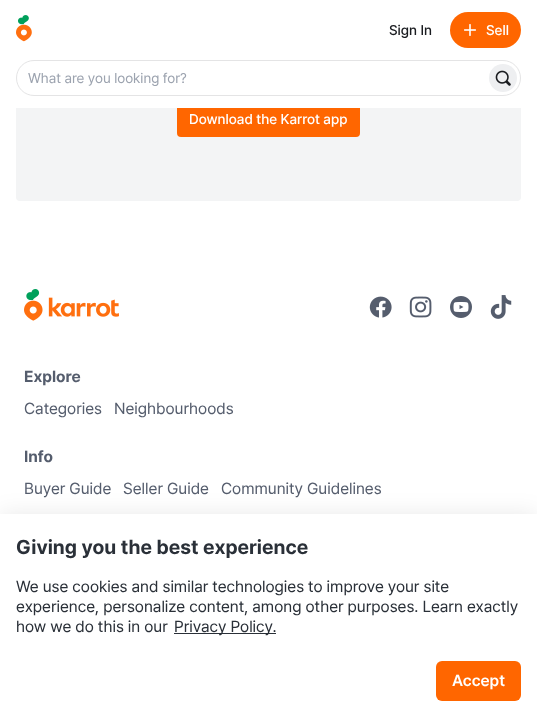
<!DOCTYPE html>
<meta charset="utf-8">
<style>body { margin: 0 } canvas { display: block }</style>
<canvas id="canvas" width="537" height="721"></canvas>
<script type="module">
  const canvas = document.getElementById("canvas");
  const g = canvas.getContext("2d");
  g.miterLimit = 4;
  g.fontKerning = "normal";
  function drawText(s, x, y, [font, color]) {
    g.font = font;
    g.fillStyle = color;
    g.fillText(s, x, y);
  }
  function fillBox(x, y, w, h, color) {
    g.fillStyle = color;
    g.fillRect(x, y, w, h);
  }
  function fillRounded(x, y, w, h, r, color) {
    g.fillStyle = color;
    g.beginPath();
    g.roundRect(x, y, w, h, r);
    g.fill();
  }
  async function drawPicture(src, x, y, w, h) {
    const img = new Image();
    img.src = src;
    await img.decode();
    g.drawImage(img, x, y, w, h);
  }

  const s1 = ["500 14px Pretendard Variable", "#1A1C20"];
  const s2 = ["500 14px Pretendard Variable", "#FFFFFF"];
  const s3 = ["14px Pretendard Variable", "#9CA3AF"];
  const s4 = ["bold 16px Pretendard Variable", "#555D6D"];
  const s5 = ["16px Pretendard Variable", "#555D6D"];
  const s6 = ["bold 20px Pretendard Variable", "#2A3038"];
  const s7 = ["16px Pretendard Variable", "#2A3038"];
  const s8 = ["600 16px Pretendard Variable", "#FFFFFF"];

  fillBox(0, 0, 537, 721, "#FFFFFF");
  fillRounded(16, -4, 505, 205, 4, "#F3F4F5");
  fillRounded(177, 101, 183, 36, 4, "#FF6600");
  fillBox(16, 0, 505, 108, "#FFFFFF");
  await drawPicture("pic1.png", 16, 15, 16, 27);
  drawText("Sign In", 389, 35, s1);
  fillRounded(450, 12, 71, 36, 18, "#FF6600");
  await drawPicture("pic2.png", 464, 24, 12, 12);
  drawText("Sell", 486, 35, s2);
  g.beginPath();
  g.roundRect(16.5, 60.5, 504, 35, 17.5);
  g.strokeStyle = "#E4E4E5";
  g.stroke();
  drawText("What are you looking for?", 28, 83, s3);
  g.fillStyle = "#EEEFF1";
  g.beginPath();
  g.arc(503, 78, 14, 0, Math.PI * 2);
  g.fill();
  await drawPicture("pic3.png", 495, 70, 16, 16);
  drawText("Download the Karrot app", 189, 124, s2);
  await drawPicture("pic4.png", 24, 289, 95, 32);
  await drawPicture("pic5.png", 369, 296, 23, 22);
  await drawPicture("pic6.png", 409, 296, 23, 22);
  await drawPicture("pic7.png", 450, 296, 22, 22);
  await drawPicture("pic8.png", 490, 295, 22, 24);
  drawText("Explore", 24, 382, s4);
  drawText("Categories", 24, 414, s5);
  drawText("Neighbourhoods", 114, 414, s5);
  drawText("Info", 24, 462, s4);
  drawText("Buyer Guide", 24, 494, s5);
  drawText("Seller Guide", 123, 494, s5);
  drawText("Community Guidelines", 221, 494, s5);
  g.fillStyle = "rgba(0, 0, 0, 0.1)";
  g.filter = "blur(12px)";
  g.beginPath();
  g.rect(0, 516, 537, 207);
  g.fill();
  g.filter = "none";
  fillBox(0, 514, 537, 207, "#FFFFFF");
  drawText("Giving you the best experience", 16, 554, s6);
  drawText("We use cookies and similar technologies to improve your site", 16, 592, s7);
  drawText("experience, personalize content, among other purposes. Learn exactly", 16, 612, s7);
  drawText("how we do this in our", 16, 632, s7);
  fillBox(174, 633, 102, 1, "#2A3038");
  drawText("Privacy Policy.", 174, 632, s7);
  fillRounded(436, 661, 85, 40, 6, "#FF6600");
  drawText("Accept", 452, 686, s8);
</script>
